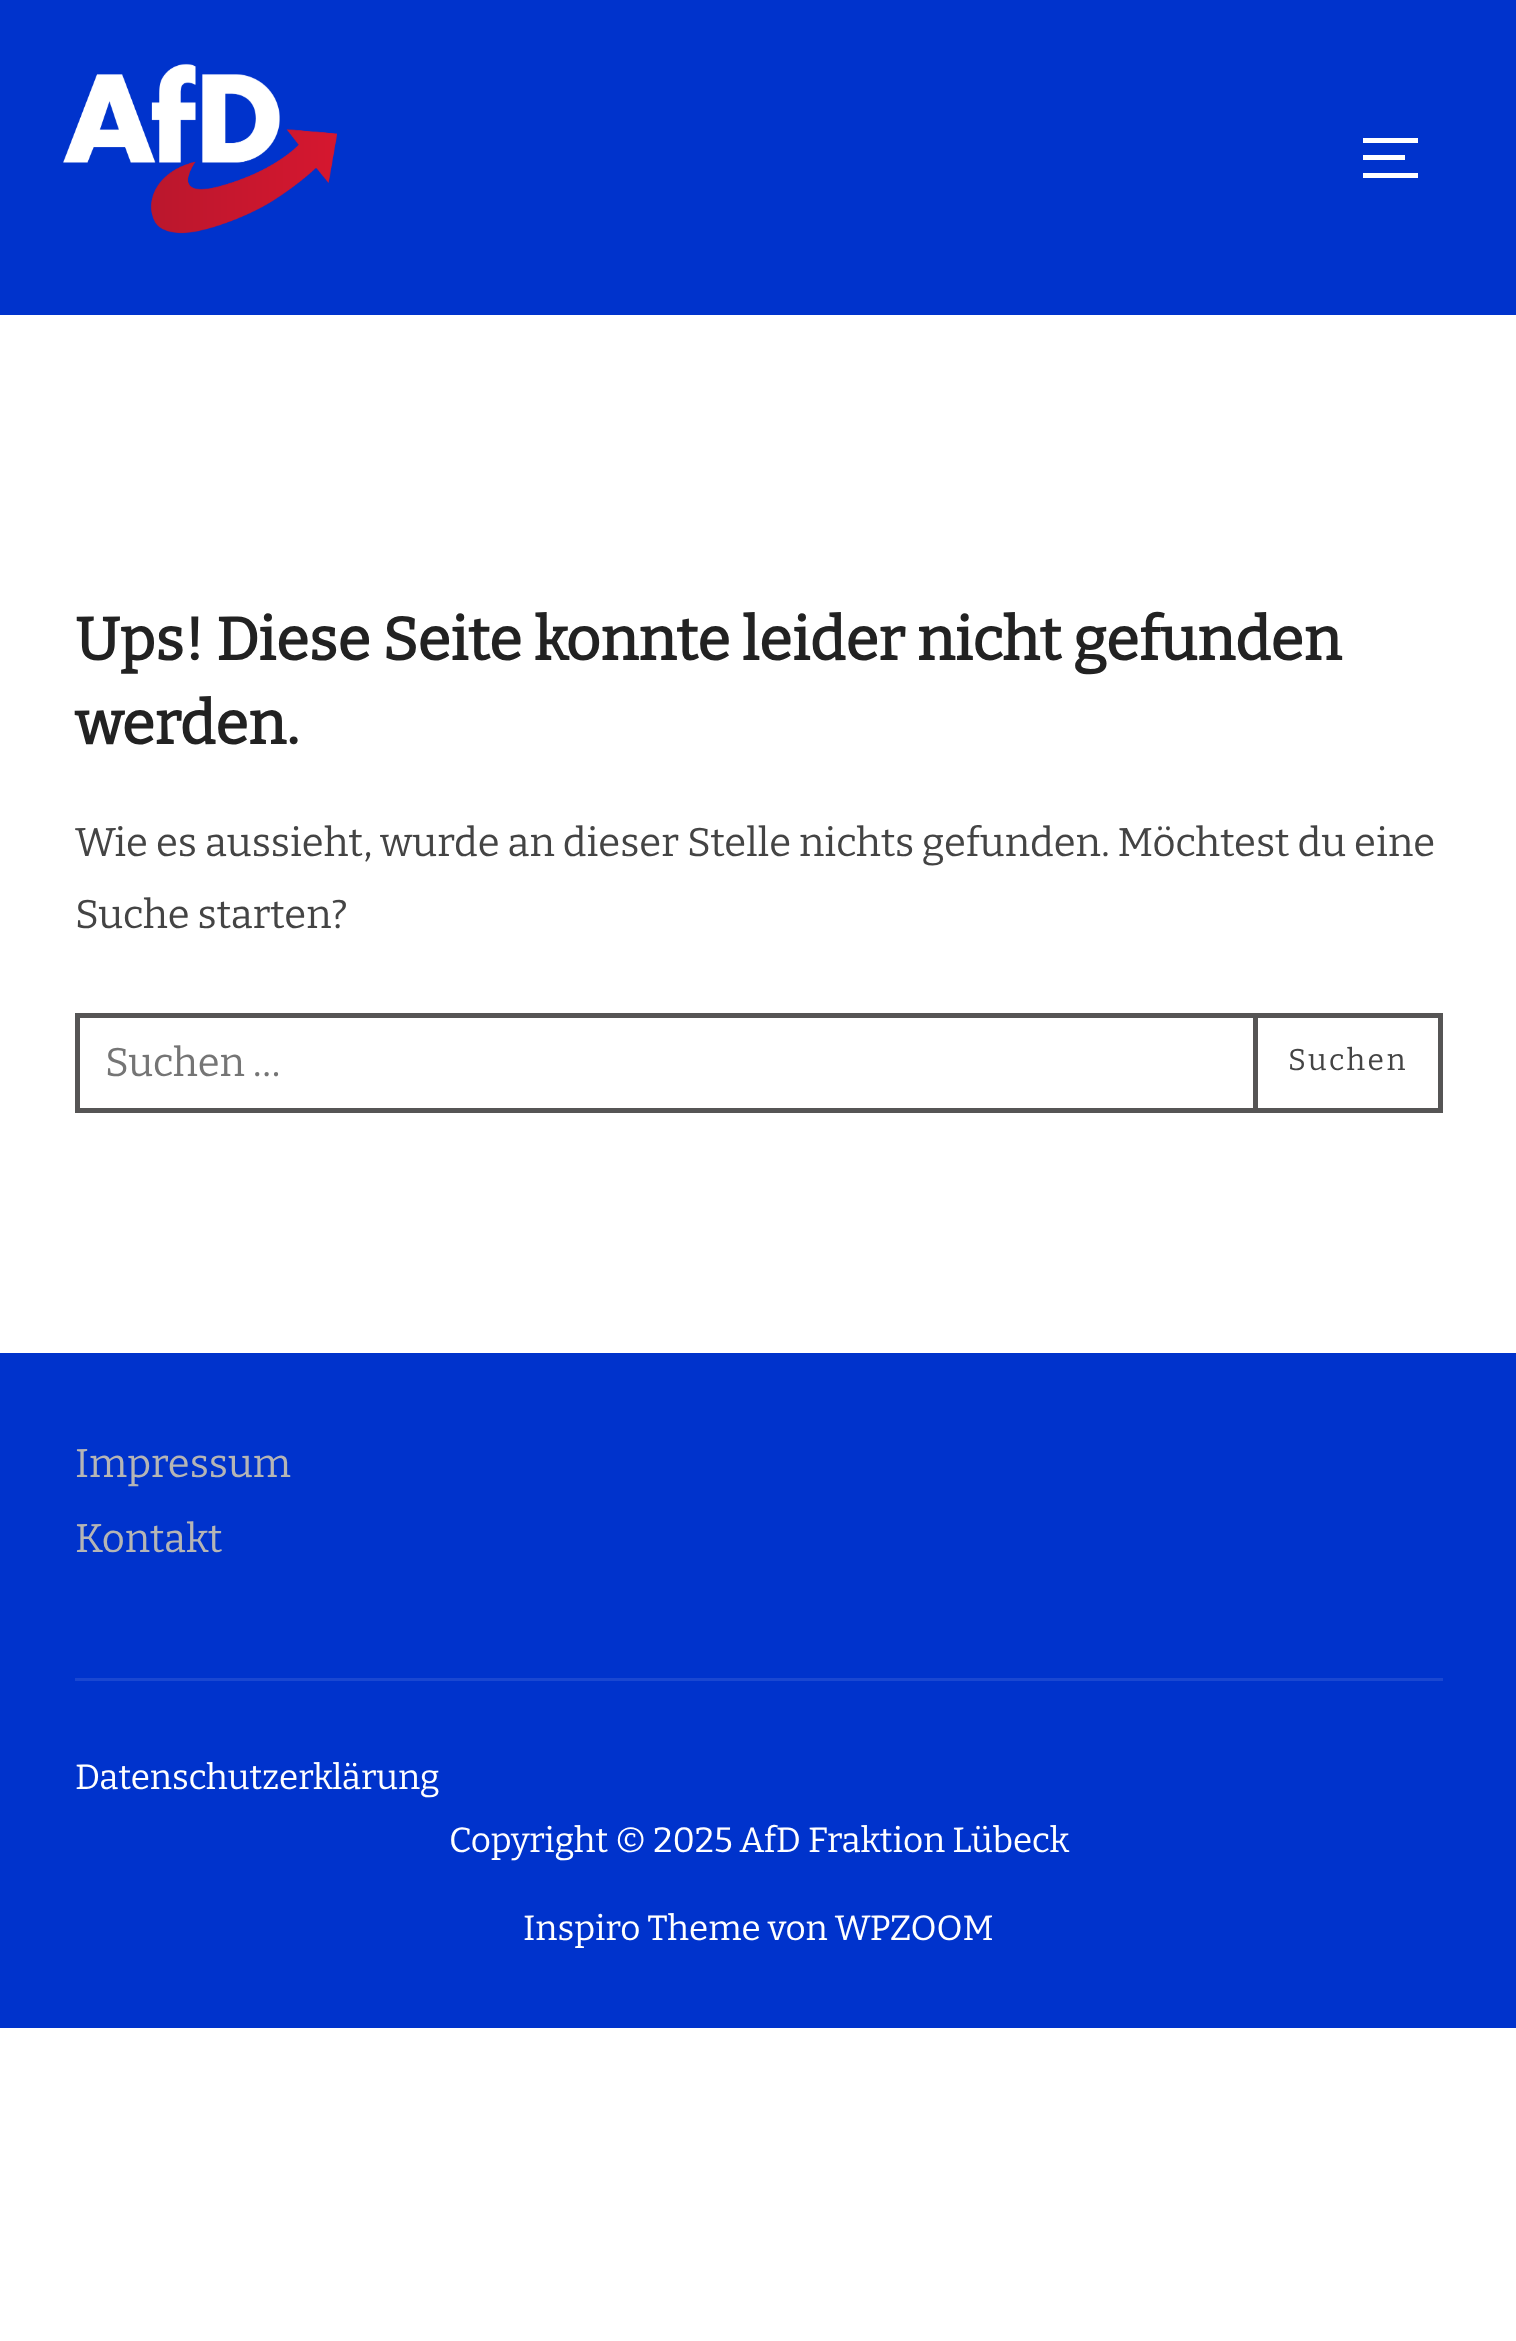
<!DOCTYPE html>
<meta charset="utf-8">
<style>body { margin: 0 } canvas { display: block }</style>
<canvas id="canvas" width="1516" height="2341"></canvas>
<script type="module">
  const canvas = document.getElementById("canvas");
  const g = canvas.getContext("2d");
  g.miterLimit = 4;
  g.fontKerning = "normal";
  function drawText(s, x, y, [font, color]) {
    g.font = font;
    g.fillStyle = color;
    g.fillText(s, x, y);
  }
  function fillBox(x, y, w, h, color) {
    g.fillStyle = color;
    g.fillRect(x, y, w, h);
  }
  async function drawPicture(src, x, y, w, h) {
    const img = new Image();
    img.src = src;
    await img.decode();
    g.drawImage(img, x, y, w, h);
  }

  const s1 = ["bold 60px Bitter", "#222222"];
  const s2 = ["100 40px Bitter", "#444444"];
  const s3 = ["100 40px Bitter", "#757575"];
  const s4 = ["100 30px Bitter", "#444444"];
  const s5 = ["100 40px Bitter", "#B5B5B5"];
  const s6 = ["100 35px Bitter", "#FFFFFF"];

  fillBox(0, 0, 1516, 2341, "#FFFFFF");
  fillBox(0, 0, 1516, 315, "#0033CC");
  await drawPicture("pic1.png", 63, 63, 274, 171);
  fillBox(1363, 138, 55, 5, "#FFFFFF");
  fillBox(1363, 155, 42, 5, "#FFFFFF");
  fillBox(1363, 173, 55, 5, "#FFFFFF");
  drawText("Ups! Diese Seite konnte leider nicht gefunden", 75, 660, s1);
  drawText("werden.", 75, 744, s1);
  drawText("Wie es aussieht, wurde an dieser Stelle nichts gefunden. Möchtest du eine", 75, 856, s2);
  drawText("Suche starten?", 75, 928, s2);
  g.strokeStyle = "#565555";
  g.lineWidth = 5;
  g.strokeRect(77.5, 1015.5, 1363, 95);
  drawText("Suchen …", 105, 1076, s3);
  g.strokeRect(1255.5, 1015.5, 185, 95);
  g.letterSpacing = "2.5px";
  drawText("Suchen", 1288, 1070, s4);
  fillBox(0, 1353, 1516, 675, "#0033CC");
  g.letterSpacing = "0px";
  drawText("Impressum", 75, 1477, s5);
  drawText("Kontakt", 75, 1552, s5);
  fillBox(75, 1678, 1368, 3, "#1A47D1");
  drawText("Datenschutzerklärung", 75, 1789, s6);
  drawText("Copyright © 2025 AfD Fraktion Lübeck", 449, 1852, s6);
  drawText("Inspiro Theme von WPZOOM", 523, 1940, s6);
</script>
